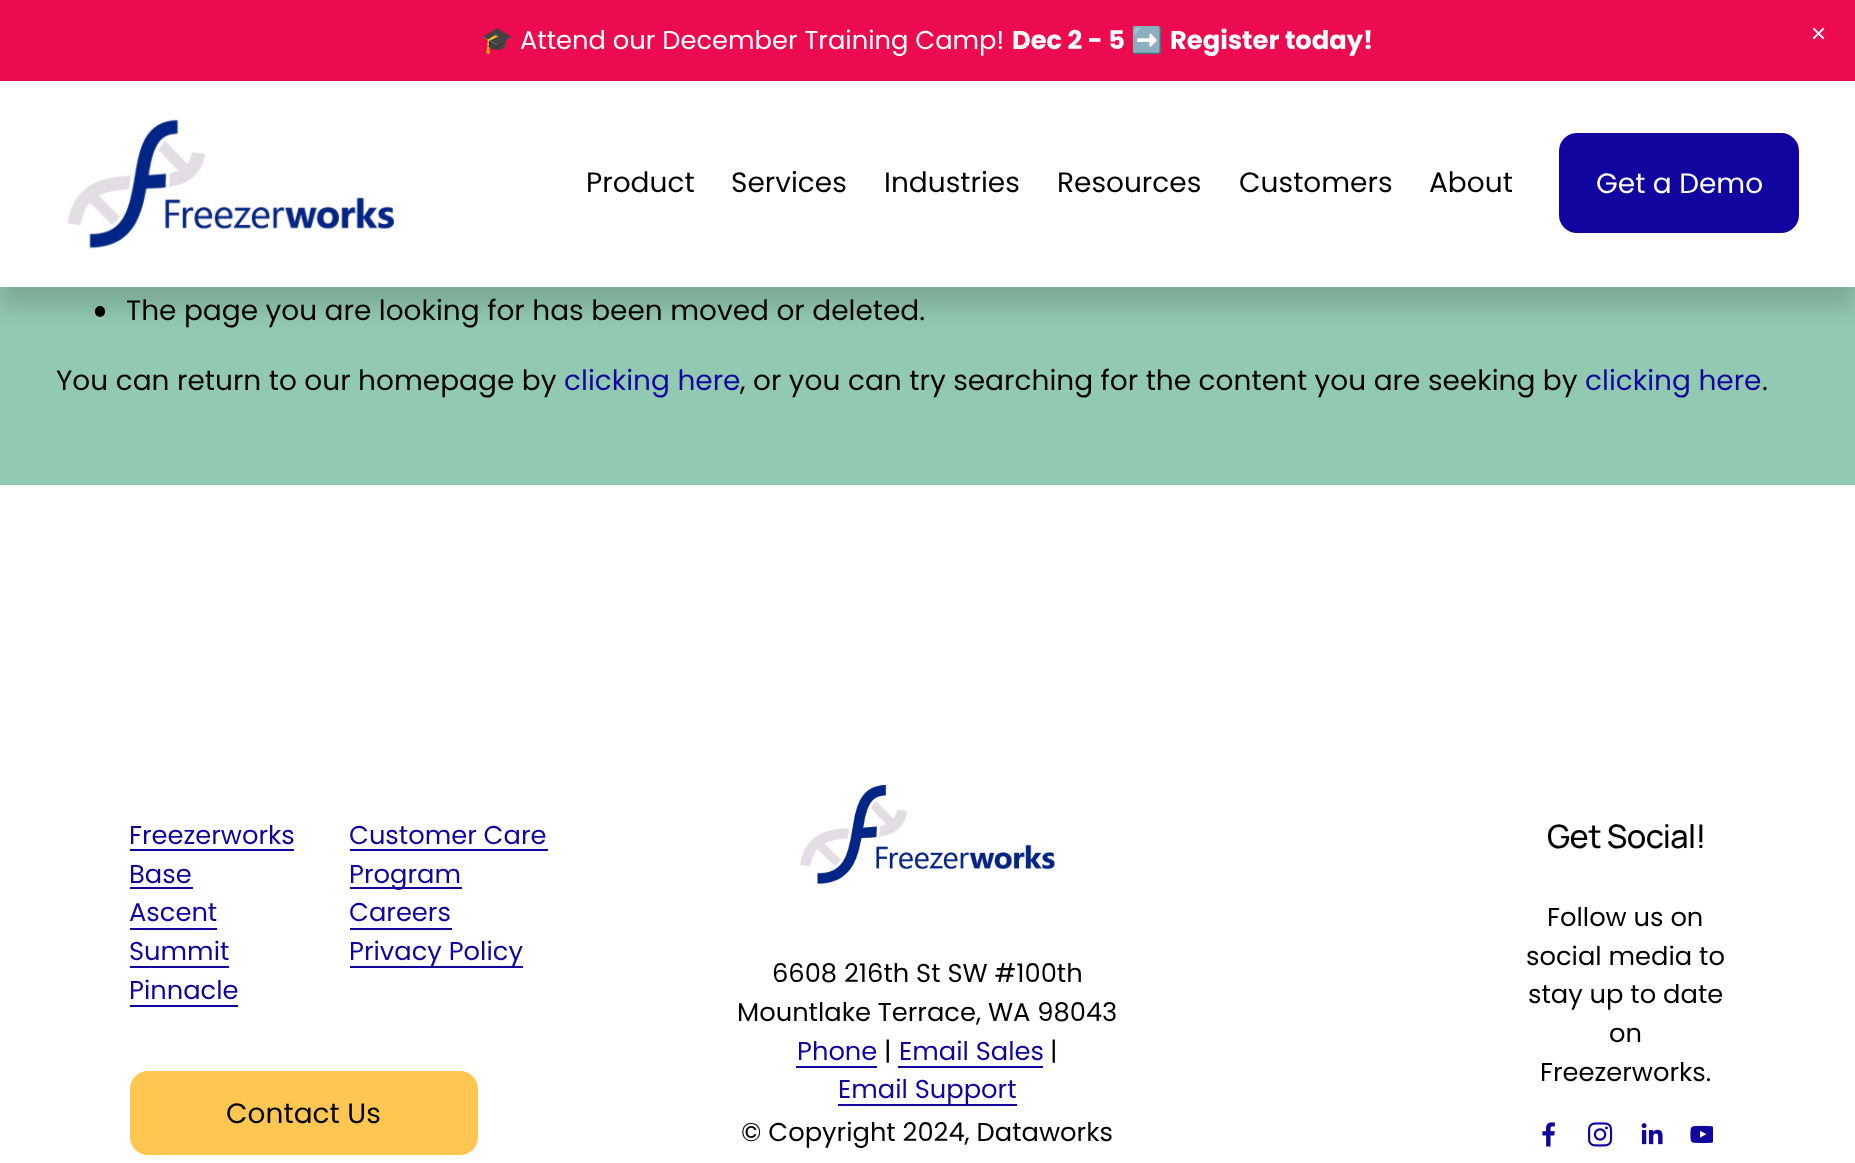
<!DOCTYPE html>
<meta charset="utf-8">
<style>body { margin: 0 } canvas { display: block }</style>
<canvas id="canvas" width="1855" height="1163"></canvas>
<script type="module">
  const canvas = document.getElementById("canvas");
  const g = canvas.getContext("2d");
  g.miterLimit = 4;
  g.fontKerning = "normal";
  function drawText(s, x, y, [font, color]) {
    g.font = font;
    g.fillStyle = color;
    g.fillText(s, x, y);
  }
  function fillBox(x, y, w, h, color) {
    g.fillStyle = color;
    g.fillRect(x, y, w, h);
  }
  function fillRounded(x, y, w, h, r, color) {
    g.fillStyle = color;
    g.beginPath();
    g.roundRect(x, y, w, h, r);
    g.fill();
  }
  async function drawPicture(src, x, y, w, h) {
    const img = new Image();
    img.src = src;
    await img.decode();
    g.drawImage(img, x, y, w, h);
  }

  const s1 = ["25.75px Noto Color Emoji", "#FFFFFF"];
  const s2 = ["25.75px Poppins", "#FFFFFF"];
  const s3 = ["bold 25.75px Poppins", "#FFFFFF"];
  const s4 = ["25.75px Liberation Sans", "#FFFFFF"];
  const s5 = ["28px Poppins", "#000000"];
  const s6 = ["28px Poppins", "#FFFFFF"];
  const s7 = ["28px Poppins", "#10069F"];
  const s8 = ["25.75px Poppins", "#10069F"];
  const s9 = ["500 32.5px Manrope", "#000000"];
  const s10 = ["25.75px Poppins", "#000000"];

  fillBox(0, 0, 1855, 1163, "#92CAB1");
  fillRounded(95, 306, 10, 11, 5, "#000000");
  g.fillStyle = "rgba(0, 0, 0, 0.15)";
  g.filter = "blur(10.5px)";
  g.beginPath();
  g.rect(0, 102, 1855, 206);
  g.fill();
  g.filter = "none";
  fillBox(0, 0, 1855, 81, "#EC0B4E");
  drawText("🎓", 481, 49, s1);
  drawText("Attend our December Training Camp!", 520, 49, s2);
  drawText("Dec 2 - 5", 1012, 49, s3);
  drawText("➡️", 1131, 49, s1);
  drawText("Register today!", 1170, 49, s3);
  drawText("×", 1811, 42, s4);
  fillBox(0, 81, 1855, 206, "#FFFFFF");
  await drawPicture("pic1.png", 67, 119, 327, 130);
  drawText("Product", 586, 192, s5);
  drawText("Services", 731, 192, s5);
  drawText("Industries", 884, 192, s5);
  drawText("Resources", 1057, 192, s5);
  drawText("Customers", 1239, 192, s5);
  drawText("About", 1429, 192, s5);
  fillRounded(1559, 133, 240, 100, 18, "#10069F");
  drawText("Get a Demo", 1596, 193, s6);
  drawText("The page you are looking for has been moved or deleted.", 126, 320, s5);
  drawText("You can return to our homepage by", 56, 390, s5);
  drawText("clicking here", 564, 390, s7);
  drawText(", or you can try searching for the content you are seeking by", 740, 390, s5);
  drawText("clicking here", 1585, 390, s7);
  drawText(".", 1762, 390, s5);
  fillBox(0, 485, 1855, 678, "#FFFFFF");
  drawText("Freezerworks", 129, 844, s8);
  fillBox(130, 849, 164, 2, "#10069F");
  drawText("Base", 129, 883, s8);
  fillBox(130, 887, 63, 2, "#10069F");
  drawText("Ascent", 129, 921, s8);
  fillBox(130, 928, 87, 2, "#10069F");
  drawText("Summit", 129, 960, s8);
  fillBox(130, 966, 99, 2, "#10069F");
  drawText("Pinnacle", 129, 999, s8);
  fillBox(130, 1005, 108, 2, "#10069F");
  drawText("Customer Care", 349, 844, s8);
  fillBox(350, 849, 198, 2, "#10069F");
  fillBox(350, 887, 112, 2, "#10069F");
  drawText("Program", 349, 883, s8);
  drawText("Careers", 349, 921, s8);
  fillBox(350, 928, 102, 2, "#10069F");
  fillBox(350, 966, 173, 2, "#10069F");
  drawText("Privacy Policy", 349, 960, s8);
  await drawPicture("pic2.png", 800, 784, 255, 100);
  g.letterSpacing = "-0.6px";
  drawText("Get Social!", 1547, 848, s9);
  g.letterSpacing = "0px";
  drawText("6608 216th St SW #100th", 772, 982, s10);
  drawText("Mountlake Terrace, WA 98043", 737, 1021, s10);
  drawText("Phone", 797, 1060, s8);
  fillBox(796, 1066, 81, 2, "#10069F");
  drawText("|", 884, 1060, s10);
  drawText("Email Sales", 899, 1060, s8);
  fillBox(898, 1066, 145, 2, "#10069F");
  drawText("|", 1050, 1060, s10);
  fillBox(838, 1104, 179, 2, "#10069F");
  drawText("Email Support", 838, 1098, s8);
  drawText("Follow us on", 1547, 926, s10);
  drawText("social media to", 1526, 965, s10);
  drawText("stay up to date", 1528, 1003, s10);
  drawText("on", 1609, 1042, s10);
  drawText("Freezerworks.", 1540, 1081, s10);
  fillRounded(130, 1071, 348, 84, 18, "#FFC652");
  drawText("Contact Us", 226, 1123, s5);
  drawText("© Copyright 2024, Dataworks", 741, 1141, s10);
  await drawPicture("pic3.png", 1542, 1122, 13, 25);
  await drawPicture("pic4.png", 1587, 1122, 26, 25);
  await drawPicture("pic5.png", 1641, 1123, 22, 22);
  await drawPicture("pic6.png", 1690, 1125, 23, 19);
</script>
